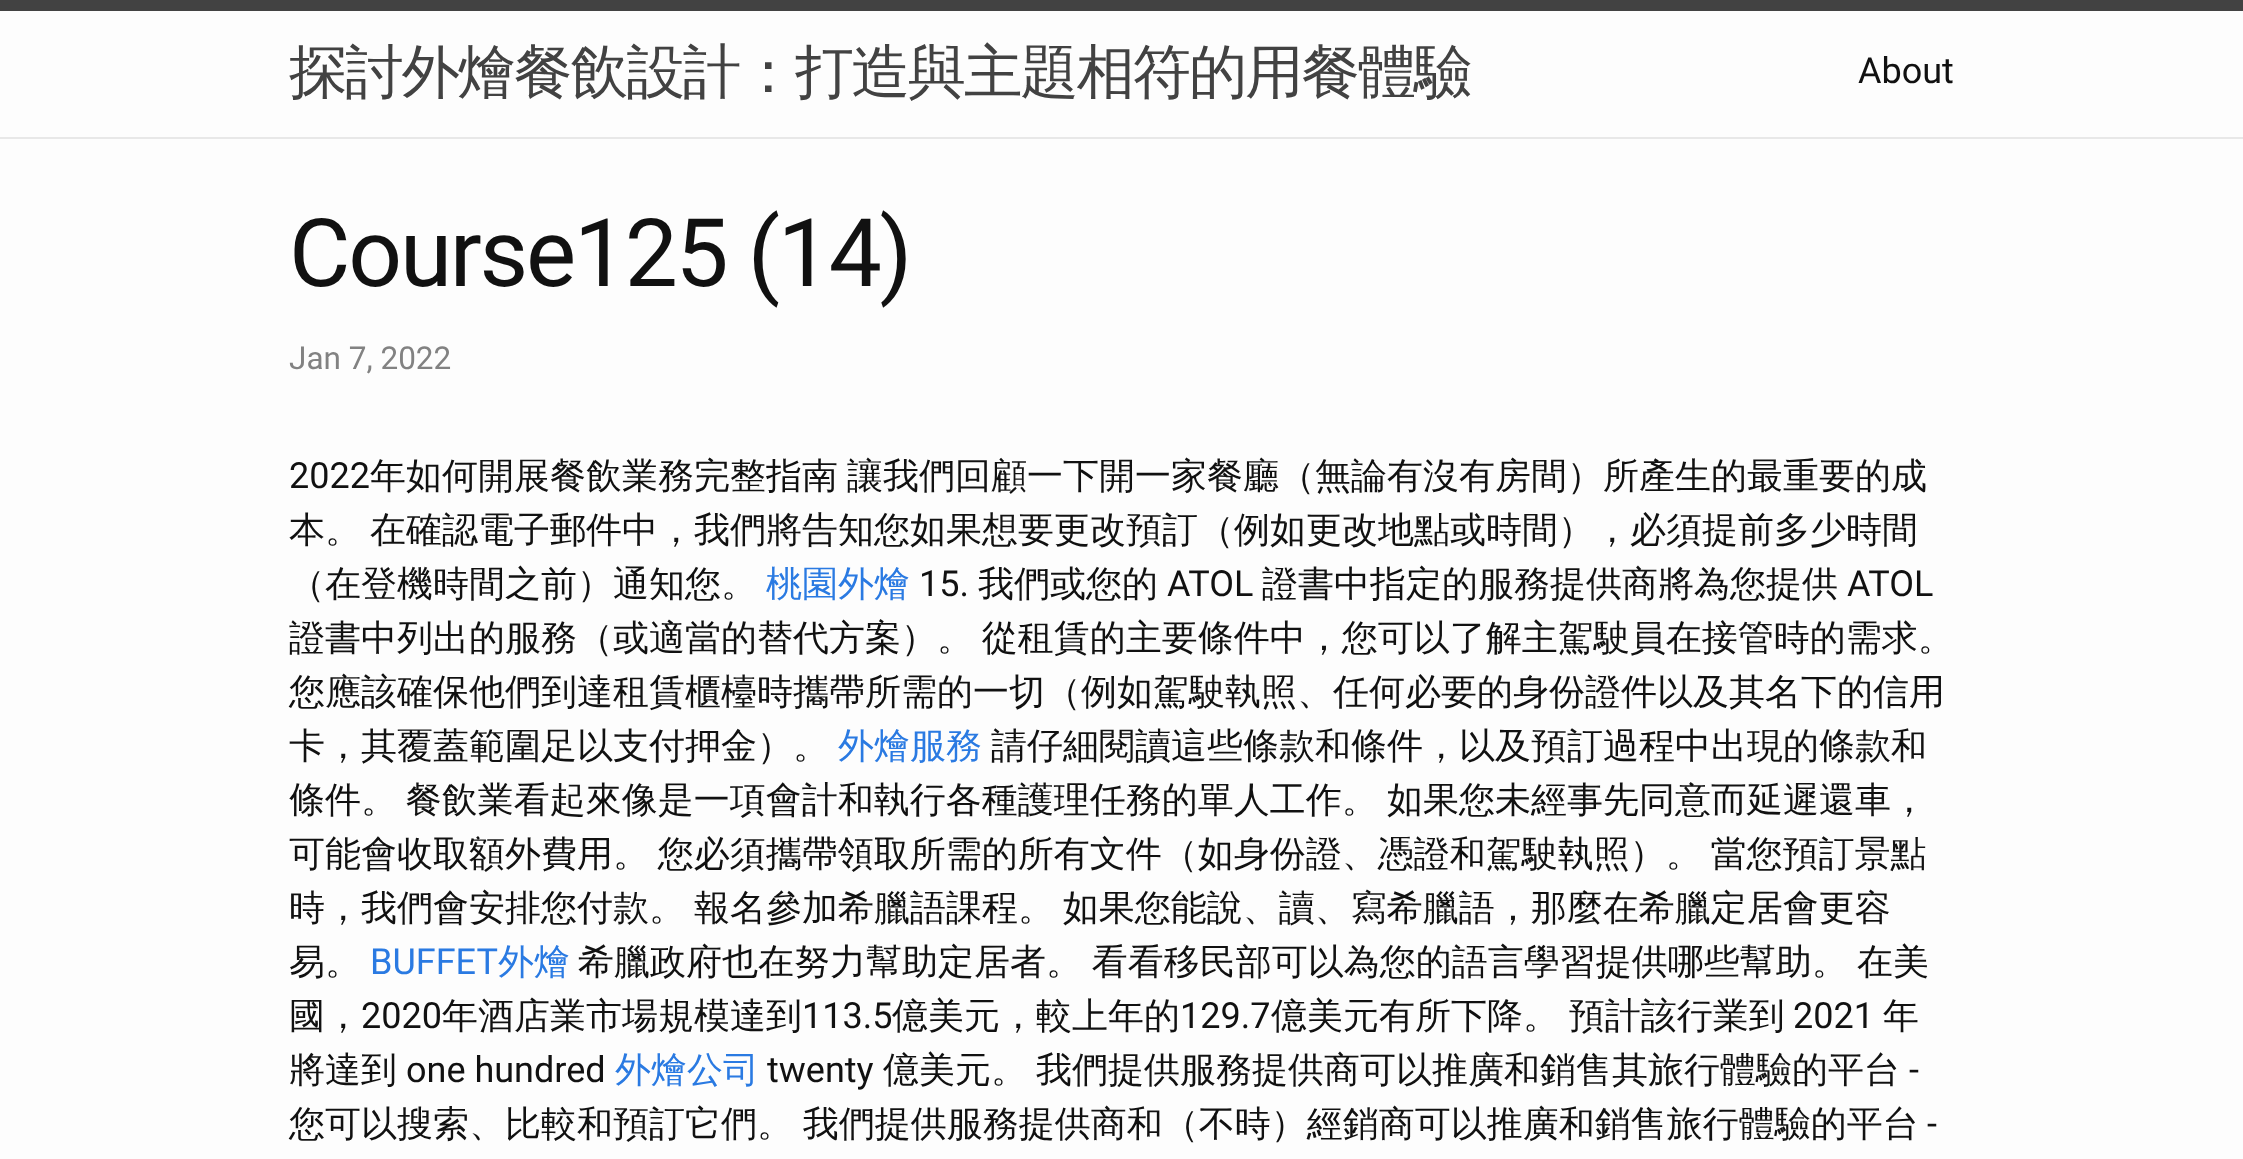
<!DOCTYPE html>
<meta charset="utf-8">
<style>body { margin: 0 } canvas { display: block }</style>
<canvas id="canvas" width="2243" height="1159"></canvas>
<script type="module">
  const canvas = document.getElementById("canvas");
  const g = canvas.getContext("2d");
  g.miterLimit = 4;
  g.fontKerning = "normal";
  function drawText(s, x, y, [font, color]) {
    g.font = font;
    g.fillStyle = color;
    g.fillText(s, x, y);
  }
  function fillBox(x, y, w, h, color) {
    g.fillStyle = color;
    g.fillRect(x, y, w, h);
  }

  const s1 = ["500 58.5px WenQuanYi Zen Hei", "#424242"];
  const s2 = ["36px Roboto", "#111111"];
  const s3 = ["94.5px Roboto", "#111111"];
  const s4 = ["31.5px Roboto", "#828282"];
  const s5 = ["500 36px WenQuanYi Zen Hei", "#111111"];
  const s6 = ["500 36px WenQuanYi Zen Hei", "#2A7AE2"];
  const s7 = ["36px Roboto", "#2A7AE2"];

  fillBox(0, 0, 2243, 1159, "#FDFDFD");
  fillBox(0, 0, 2243, 11, "#424242");
  fillBox(0, 137, 2243, 2, "#E8E8E8");
  g.letterSpacing = "-2.25px";
  drawText("探討外燴餐飲設計：打造與主題相符的用餐體驗", 289, 92, s1);
  g.letterSpacing = "0px";
  drawText("About", 1858, 83, s2);
  g.letterSpacing = "-2.25px";
  drawText("Course125 (14)", 289, 286, s3);
  g.letterSpacing = "0px";
  drawText("Jan 7, 2022", 289, 369, s4);
  drawText("2022", 289, 488, s2);
  drawText("年如何開展餐飲業務完整指南", 370, 488, s5);
  drawText("讓我們回顧一下開一家餐廳（無論有沒有房間）所產生的最重要的成", 847, 488, s5);
  drawText("本。", 289, 542, s5);
  drawText("在確認電子郵件中，我們將告知您如果想要更改預訂（例如更改地點或時間），必須提前多少時間", 370, 542, s5);
  drawText("（在登機時間之前）通知您。", 289, 596, s5);
  drawText("桃園外燴", 766, 596, s6);
  drawText("15.", 919, 596, s2);
  drawText("我們或您的", 978, 596, s5);
  drawText("ATOL", 1167, 596, s2);
  drawText("證書中指定的服務提供商將為您提供", 1262, 596, s5);
  drawText("ATOL", 1847, 596, s2);
  g.wordSpacing = "-2px";
  drawText("證書中列出的服務（或適當的替代方案）。 從租賃的主要條件中，您可以了解主駕駛員在接管時的需求。", 289, 650, s5);
  g.wordSpacing = "0px";
  drawText("您應該確保他們到達租賃櫃檯時攜帶所需的一切（例如駕駛執照、任何必要的身份證件以及其名下的信用", 289, 704, s5);
  drawText("卡，其覆蓋範圍足以支付押金）。", 289, 758, s5);
  drawText("外燴服務", 838, 758, s6);
  drawText("請仔細閱讀這些條款和條件，以及預訂過程中出現的條款和", 991, 758, s5);
  g.wordSpacing = "-2px";
  drawText("條件。 餐飲業看起來像是一項會計和執行各種護理任務的單人工作。", 289, 812, s5);
  g.wordSpacing = "0px";
  drawText("如果您未經事先同意而延遲還車，", 1387, 812, s5);
  g.wordSpacing = "-2px";
  drawText("可能會收取額外費用。 您必須攜帶領取所需的所有文件（如身份證、憑證和駕駛執照）。 當您預訂景點", 289, 866, s5);
  g.wordSpacing = "0px";
  drawText("時，我們會安排您付款。", 289, 920, s5);
  g.wordSpacing = "-2px";
  drawText("報名參加希臘語課程。 如果您能說、讀、寫希臘語，那麼在希臘定居會更容", 694, 920, s5);
  g.wordSpacing = "0px";
  drawText("易。", 289, 974, s5);
  drawText("BUFFET", 370, 974, s7);
  drawText("外燴", 498, 974, s6);
  g.wordSpacing = "-1px";
  drawText("希臘政府也在努力幫助定居者。 看看移民部可以為您的語言學習提供哪些幫助。", 578, 974, s5);
  g.wordSpacing = "0px";
  drawText("在美", 1857, 974, s5);
  drawText("國，", 289, 1028, s5);
  drawText("2020", 361, 1028, s2);
  drawText("年酒店業市場規模達到", 442, 1028, s5);
  drawText("113.5", 802, 1028, s2);
  drawText("億美元，較上年的", 892, 1028, s5);
  drawText("129.7", 1180, 1028, s2);
  g.wordSpacing = "-1px";
  drawText("億美元有所下降。 預計該行業到", 1271, 1028, s5);
  g.wordSpacing = "0px";
  drawText("2021", 1793, 1028, s2);
  drawText("年", 1883, 1028, s5);
  drawText("將達到", 289, 1082, s5);
  drawText("one hundred", 406, 1082, s2);
  drawText("外燴公司", 615, 1082, s6);
  drawText("twenty", 767, 1082, s2);
  drawText("億美元。", 883, 1082, s5);
  drawText("我們提供服務提供商可以推廣和銷售其旅行體驗的平台", 1036, 1082, s5);
  drawText("-", 1909, 1082, s2);
  g.wordSpacing = "-1px";
  drawText("您可以搜索、比較和預訂它們。 我們提供服務提供商和（不時）經銷商可以推廣和銷售旅行體驗的平台", 289, 1136, s5);
  g.wordSpacing = "0px";
  drawText("-", 1927, 1136, s2);
</script>
